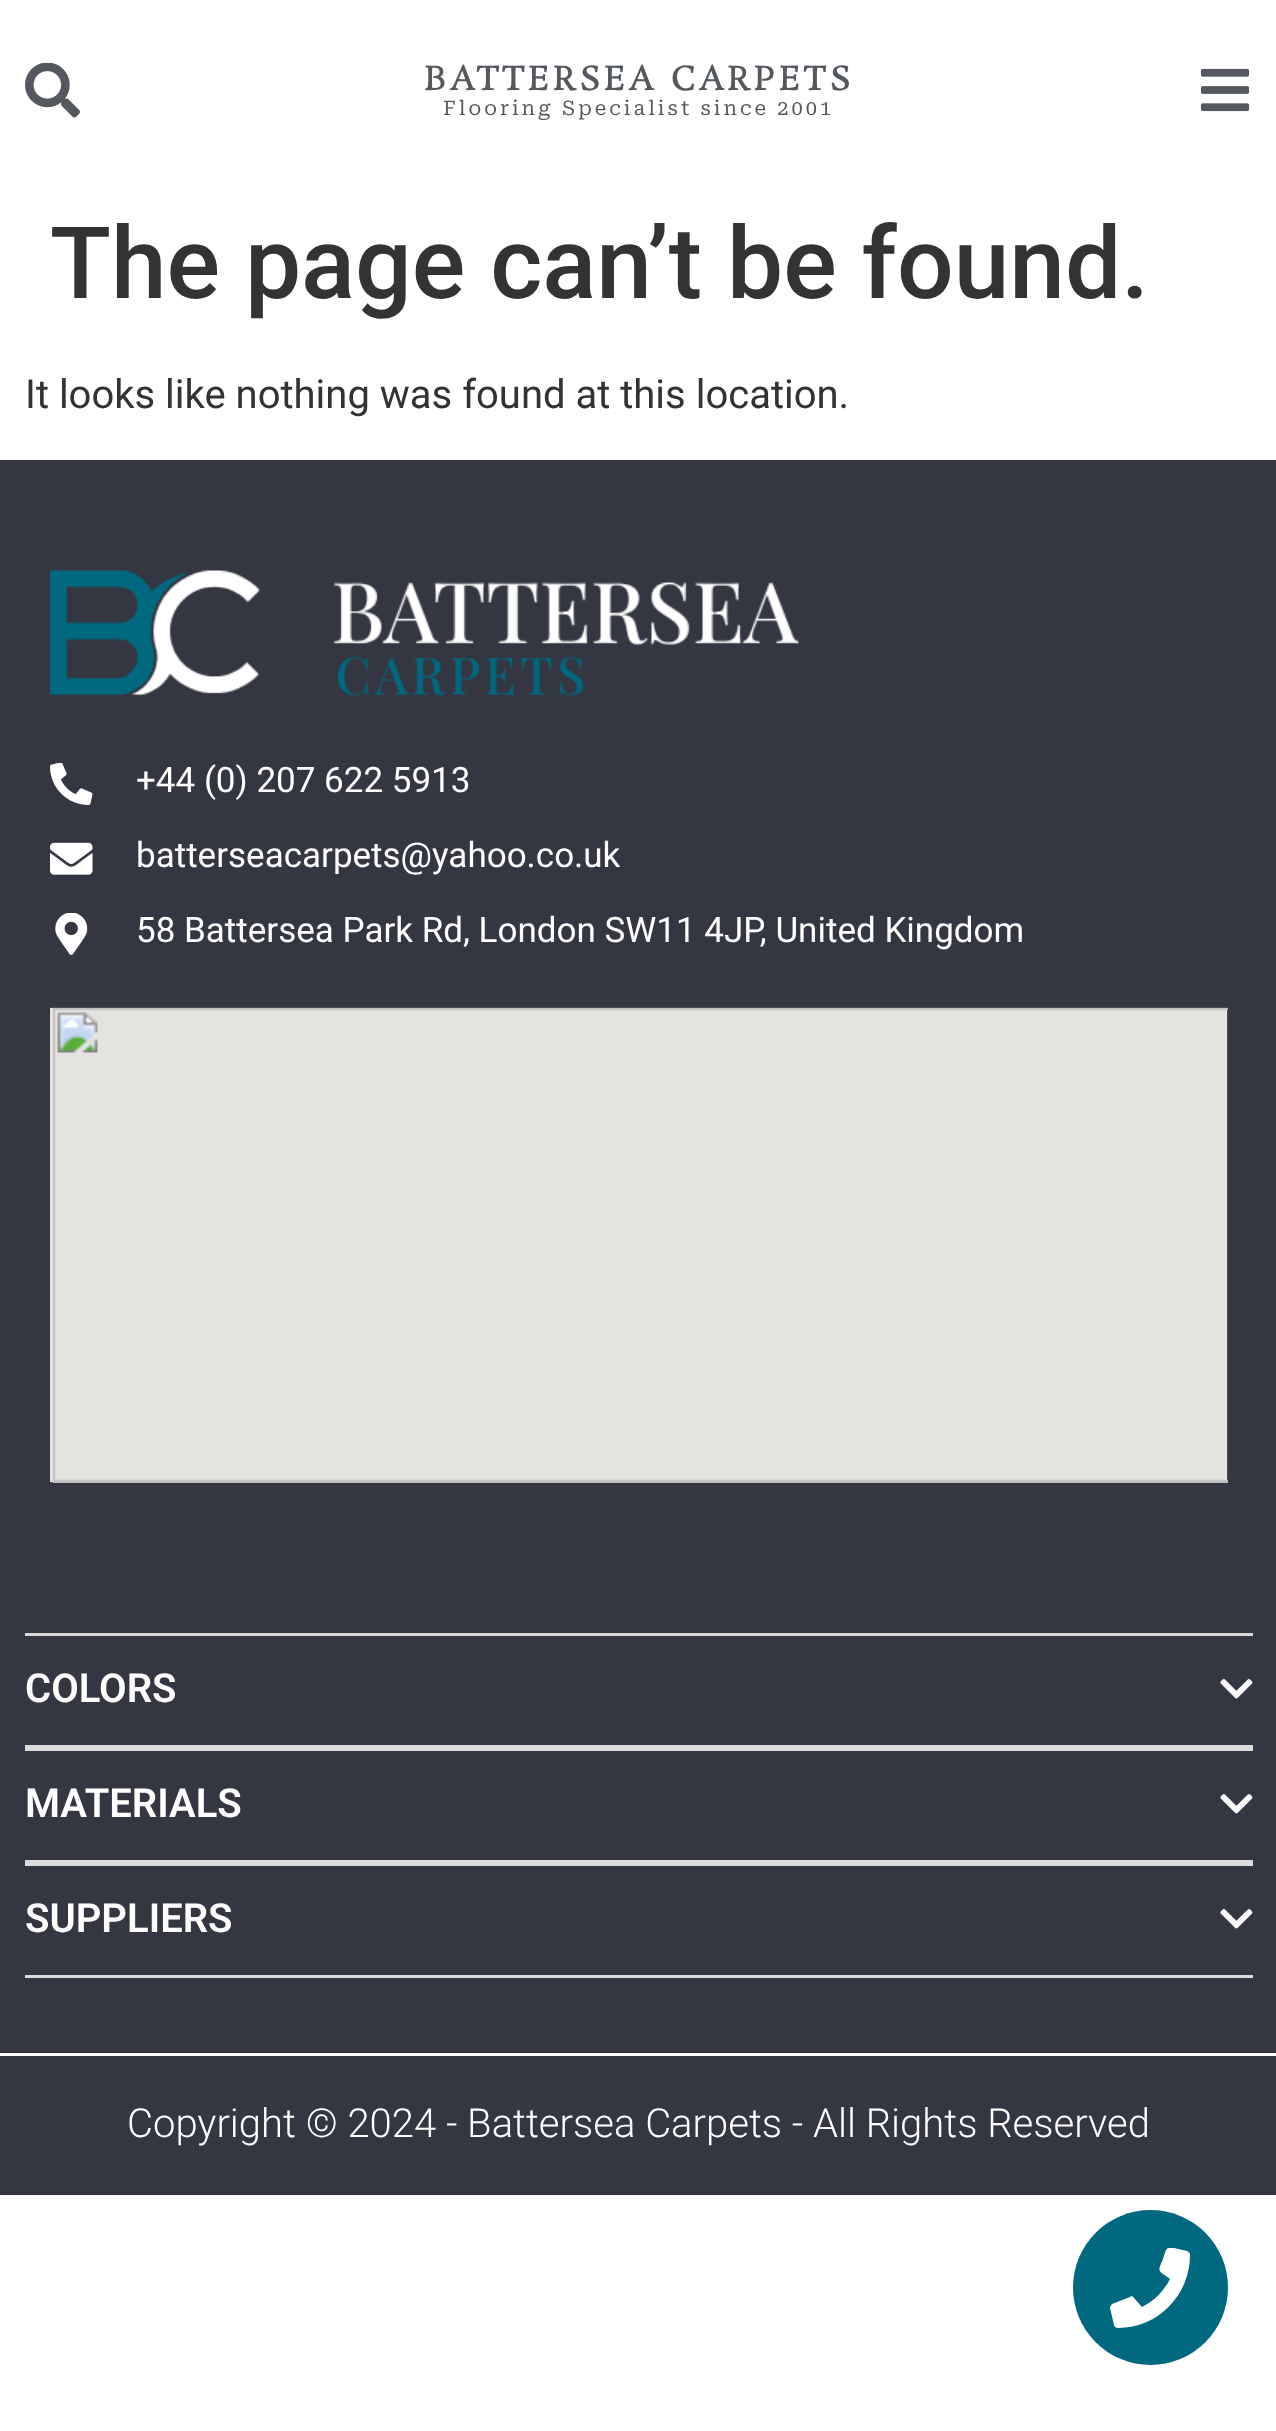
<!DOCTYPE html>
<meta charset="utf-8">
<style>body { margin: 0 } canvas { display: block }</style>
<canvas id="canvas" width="1276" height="2431"></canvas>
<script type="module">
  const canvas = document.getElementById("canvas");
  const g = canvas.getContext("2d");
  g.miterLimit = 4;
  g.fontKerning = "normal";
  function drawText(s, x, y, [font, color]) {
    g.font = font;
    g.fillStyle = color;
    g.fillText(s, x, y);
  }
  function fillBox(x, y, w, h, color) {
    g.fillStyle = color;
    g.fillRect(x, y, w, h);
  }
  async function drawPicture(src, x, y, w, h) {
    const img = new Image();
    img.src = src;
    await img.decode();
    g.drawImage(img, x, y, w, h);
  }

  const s1 = ["bold 32.5px Rosarivo", "#54595F"];
  const s2 = ["20px Roboto Serif", "#54595F"];
  const s3 = ["500 100px Roboto", "#333333"];
  const s4 = ["40px Roboto", "#333333"];
  const s5 = ["35px Roboto", "#FFFFFF"];
  const s6 = ["600 40px Roboto", "#FFFFFF"];
  const s7 = ["300 40px Roboto", "#FFFFFF"];

  fillBox(0, 0, 1276, 2431, "#FFFFFF");
  await drawPicture("pic1.png", 25, 63, 55, 55);
  g.letterSpacing = "3.75px";
  drawText("BATTERSEA CARPETS", 424, 90, s1);
  g.letterSpacing = "3px";
  drawText("Flooring Specialist since 2001", 443, 115, s2);
  g.fillStyle = "#006980";
  g.beginPath();
  g.arc(1150.5, 2287.5, 77.5, 0, Math.PI * 2);
  g.fill();
  g.save();
  g.beginPath();
  g.rect(1110, 2248, 80, 80);
  g.clip();
  g.fillStyle = "#FFFFFF";
  g.beginPath();
  g.moveTo(1187, 2251);
  g.lineTo(1174, 2248);
  g.bezierCurveTo(1165, 2246, 1166, 2251, 1163, 2259);
  g.bezierCurveTo(1157, 2273, 1158, 2270, 1170, 2279);
  g.bezierCurveTo(1164, 2291, 1154, 2301, 1142, 2307);
  g.lineTo(1134, 2298);
  g.bezierCurveTo(1133, 2296, 1131, 2296, 1130, 2297);
  g.lineTo(1112, 2304);
  g.bezierCurveTo(1111, 2305, 1110, 2307, 1110, 2308);
  g.lineTo(1114, 2325);
  g.bezierCurveTo(1114, 2326, 1116, 2328, 1118, 2328);
  g.bezierCurveTo(1158, 2328, 1190, 2295, 1190, 2255);
  g.bezierCurveTo(1190, 2253, 1189, 2252, 1187, 2251);
  g.closePath();
  g.fill();
  g.restore();
  await drawPicture("pic2.png", 1200, 68, 50, 44);
  g.letterSpacing = "0px";
  drawText("The page can’t be found.", 50, 298, s3);
  drawText("It looks like nothing was found at this location.", 25, 408, s4);
  fillBox(0, 460, 1276, 1735, "#343741");
  await drawPicture("pic3.png", 50, 569, 749, 128);
  await drawPicture("pic4.png", 50, 763, 43, 42);
  drawText("+44 (0) 207 622 5913", 136, 792, s5);
  await drawPicture("pic5.png", 50, 842, 43, 33);
  drawText("batterseacarpets@yahoo.co.uk", 136, 867, s5);
  await drawPicture("pic6.png", 55, 913, 33, 42);
  drawText("58 Battersea Park Rd, London SW11 4JP, United Kingdom", 136, 942, s5);
  await drawPicture("pic7.png", 50, 1007, 1178, 476);
  fillBox(25, 1633, 1228, 3, "#DBDBDB");
  fillBox(25, 1745, 1228, 6, "#DBDBDB");
  drawText("COLORS", 25, 1702, s6);
  await drawPicture("pic8.png", 1220, 1679, 33, 20);
  fillBox(25, 1860, 1228, 6, "#DBDBDB");
  drawText("MATERIALS", 25, 1817, s6);
  await drawPicture("pic8.png", 1220, 1794, 33, 20);
  fillBox(25, 1975, 1228, 3, "#DBDBDB");
  drawText("SUPPLIERS", 25, 1932, s6);
  await drawPicture("pic8.png", 1220, 1909, 33, 20);
  fillBox(0, 2053, 1276, 3, "#FFFFFF");
  drawText("Copyright © 2024 - Battersea Carpets - All Rights Reserved", 127, 2137, s7);
</script>
